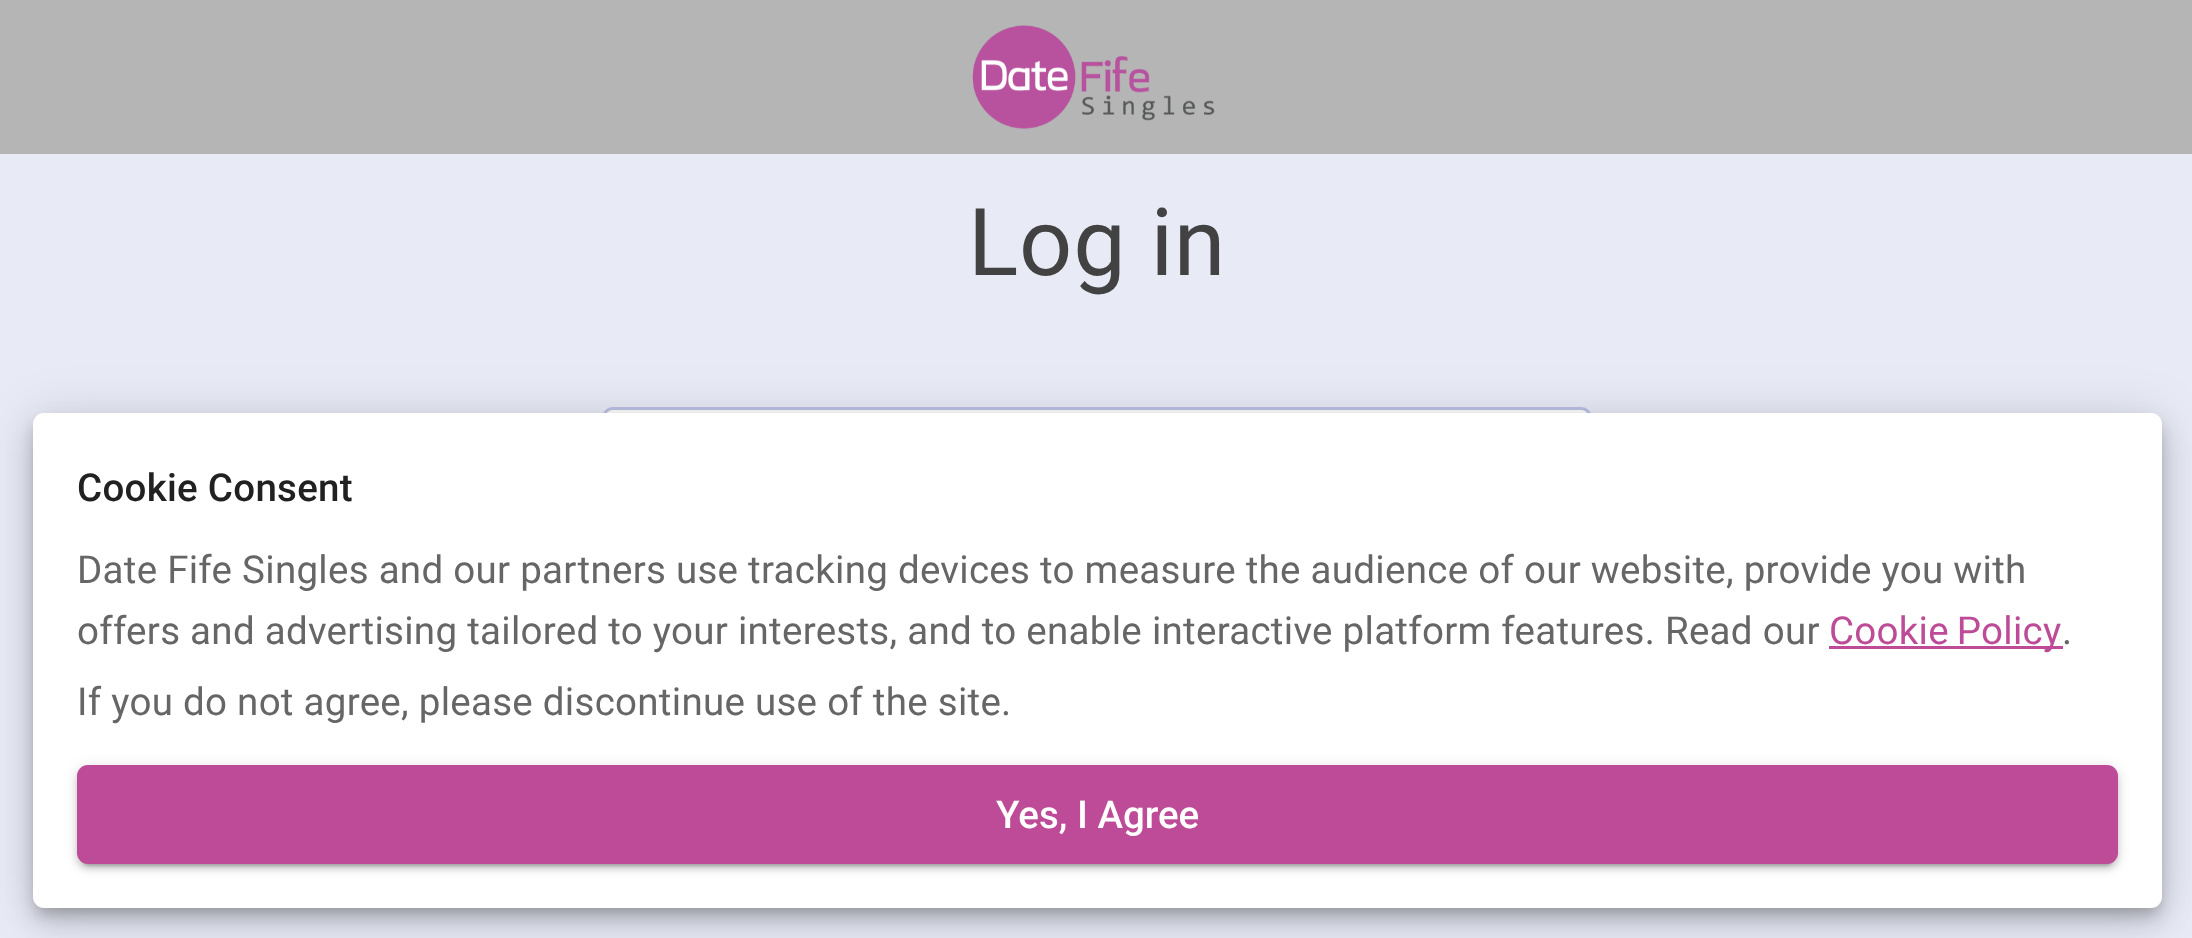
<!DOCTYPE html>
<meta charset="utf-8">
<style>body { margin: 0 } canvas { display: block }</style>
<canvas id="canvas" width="2192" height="938"></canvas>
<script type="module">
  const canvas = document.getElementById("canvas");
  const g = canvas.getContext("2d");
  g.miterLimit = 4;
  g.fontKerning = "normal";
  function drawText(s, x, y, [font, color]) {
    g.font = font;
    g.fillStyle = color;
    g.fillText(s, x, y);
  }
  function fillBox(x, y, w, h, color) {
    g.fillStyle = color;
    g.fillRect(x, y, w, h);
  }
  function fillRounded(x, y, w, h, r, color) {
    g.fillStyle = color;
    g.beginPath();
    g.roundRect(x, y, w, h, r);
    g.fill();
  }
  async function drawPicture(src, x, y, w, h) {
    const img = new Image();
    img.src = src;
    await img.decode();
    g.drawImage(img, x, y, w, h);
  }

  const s1 = ["93.5px Roboto", "#424242"];
  const s2 = ["500 38.5px Roboto", "#212121"];
  const s3 = ["38.5px Roboto", "#666666"];
  const s4 = ["38.5px Roboto", "#BD4B97"];
  const s5 = ["500 38.5px Roboto", "#FFFFFF"];

  fillBox(0, 0, 2192, 938, "#E8EAF6");
  fillBox(0, 0, 2192, 154, "#B5B5B5");
  await drawPicture("pic1.png", 972, 25, 243, 104);
  g.letterSpacing = "0.75px";
  drawText("Log in", 968, 275, s1);
  fillRounded(602, 407, 990, 121, 11, "#FFFFFF");
  g.beginPath();
  g.roundRect(603.5, 408.5, 987, 118, 9.5);
  g.strokeStyle = "rgba(121, 134, 203, 0.5)";
  g.lineWidth = 3;
  g.stroke();
  g.fillStyle = "rgba(0, 0, 0, 0.12)";
  g.filter = "blur(25px)";
  g.beginPath();
  g.roundRect(33, 415, 2129, 495, 11);
  g.fill();
  g.filter = "none";
  g.fillStyle = "rgba(0, 0, 0, 0.14)";
  g.filter = "blur(14px)";
  g.beginPath();
  g.roundRect(33, 429, 2129, 495, 11);
  g.fill();
  g.filter = "none";
  g.fillStyle = "rgba(0, 0, 0, 0.2)";
  g.filter = "blur(7px)";
  g.beginPath();
  g.roundRect(36, 424, 2123, 489, 8);
  g.fill();
  g.filter = "none";
  fillRounded(33, 413, 2129, 495, 11, "#FFFFFF");
  g.letterSpacing = "0.28px";
  drawText("Cookie Consent", 77, 501, s2);
  drawText("Date Fife Singles and our partners use tracking devices to measure the audience of our website, provide you with", 77, 583, s3);
  drawText("offers and advertising tailored to your interests, and to enable interactive platform features. Read our", 77, 644, s3);
  fillBox(1829, 646, 234, 3, "#BD4B97");
  g.wordSpacing = "-2px";
  drawText("Cookie Policy", 1829, 644, s4);
  g.wordSpacing = "0px";
  drawText(".", 2062, 644, s3);
  drawText("If you do not agree, please discontinue use of the site.", 77, 715, s3);
  g.fillStyle = "rgba(0, 0, 0, 0.12)";
  g.filter = "blur(7px)";
  g.beginPath();
  g.roundRect(77, 767, 2041, 99, 11);
  g.fill();
  g.filter = "none";
  g.fillStyle = "rgba(0, 0, 0, 0.14)";
  g.filter = "blur(3px)";
  g.beginPath();
  g.roundRect(77, 770, 2041, 99, 11);
  g.fill();
  g.filter = "none";
  g.fillStyle = "rgba(0, 0, 0, 0.2)";
  g.filter = "blur(1.5px)";
  g.beginPath();
  g.roundRect(83, 778, 2029, 88, 6);
  g.fill();
  g.filter = "none";
  fillRounded(77, 765, 2041, 99, 11, "#BD4B97");
  g.letterSpacing = "0px";
  drawText("Yes, I Agree", 996, 828, s5);
</script>
